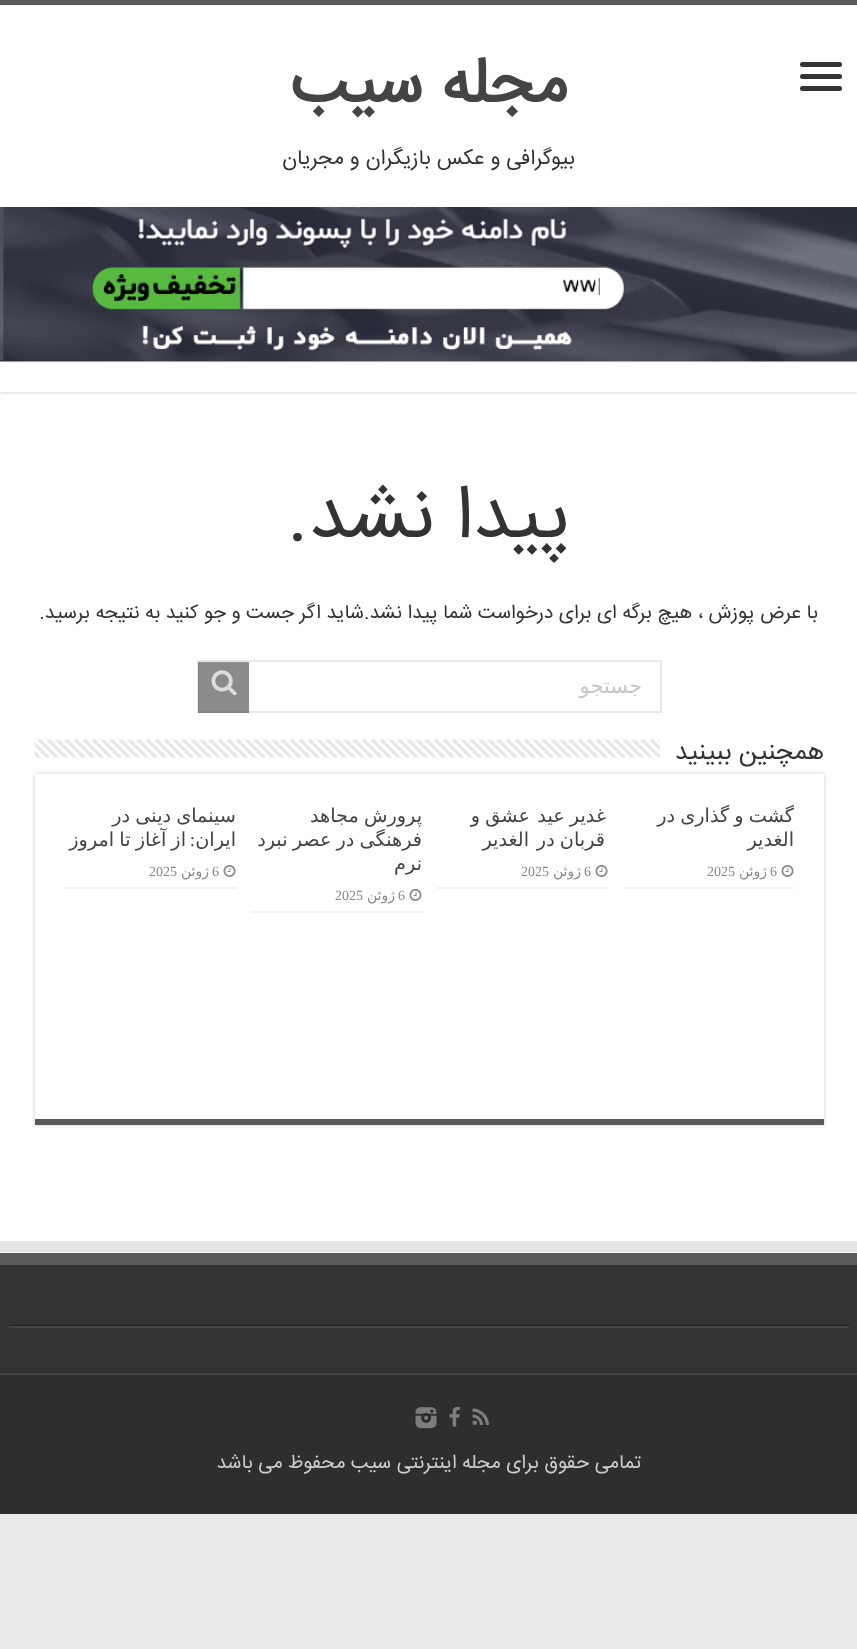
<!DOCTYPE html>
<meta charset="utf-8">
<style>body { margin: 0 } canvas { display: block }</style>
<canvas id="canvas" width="857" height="1649"></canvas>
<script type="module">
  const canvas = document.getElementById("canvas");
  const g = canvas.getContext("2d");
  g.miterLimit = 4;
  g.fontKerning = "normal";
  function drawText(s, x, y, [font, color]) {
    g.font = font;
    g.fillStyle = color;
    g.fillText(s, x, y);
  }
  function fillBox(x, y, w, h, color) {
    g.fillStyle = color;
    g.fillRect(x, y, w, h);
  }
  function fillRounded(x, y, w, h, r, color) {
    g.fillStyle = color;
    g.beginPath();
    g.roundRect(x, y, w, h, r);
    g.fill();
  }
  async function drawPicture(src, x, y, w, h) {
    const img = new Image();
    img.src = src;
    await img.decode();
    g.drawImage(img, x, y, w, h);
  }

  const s1 = ["bold 64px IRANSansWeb", "#444444"];
  const s2 = ["21px IRANSansWeb", "#333333"];
  const s3 = ["75px IRANSansWeb", "#333333"];
  const s4 = ["19.5px IRANSansWeb", "#333333"];
  const s5 = ["21px DejaVu Sans", "#C5C5C5"];
  const s6 = ["25.5px IRANSansWeb", "#333333"];
  const s7 = ["19.25px DejaVu Sans", "#444444"];
  const s8 = ["14px Liberation Serif", "#888888"];
  const s9 = ["14px DejaVu Sans", "#888888"];
  const s10 = ["19.25px Liberation Serif", "#444444"];
  const s11 = ["19.5px IRANSansWeb", "#CCCCCC"];

  fillBox(0, 0, 857, 1649, "#EAEAEA");
  fillBox(0, 392, 857, 861, "#FFFFFF");
  g.fillStyle = "#CACACA";
  g.filter = "blur(2px)";
  g.beginPath();
  g.rect(0, 0, 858, 392);
  g.fill();
  g.filter = "none";
  fillBox(0, 5, 857, 387, "#FFFFFF");
  fillBox(0, 0, 857, 5, "#5A5A5A");
  fillRounded(800, 62, 42, 5, 2.5, "#333333");
  fillRounded(800, 74, 42, 5, 2.5, "#333333");
  fillRounded(800, 86, 42, 5, 2.5, "#333333");
  g.direction = "rtl";
  drawText("مجله سیب", 568, 102, s1);
  drawText("بیوگرافی و عکس بازیگران و مجریان", 575, 164, s2);
  await drawPicture("pic1.png", 0, 207, 857, 155);
  drawText("پیدا نشد.", 570, 537, s3);
  drawText("با عرض پوزش ، هیچ برگه ای برای درخواست شما پیدا نشد.شاید اگر جست و جو کنید به نتیجه برسید.", 818, 618, s4);
  g.strokeStyle = "#E8E8E8";
  g.lineWidth = 2;
  g.strokeRect(198, 661, 463, 51);
  drawText("جستجو", 642, 693, s5);
  fillBox(198, 662, 51, 51, "rgba(90, 90, 90, 0.7)");
  await drawPicture("pic2.png", 211, 670, 26, 26);
  g.fillStyle = "#CACACA";
  g.filter = "blur(2px)";
  g.beginPath();
  g.rect(35, 774, 789, 351);
  g.fill();
  g.filter = "none";
  drawText("همچنین ببینید", 824, 759, s6);
  await drawPicture("pic3.png", 34, 739, 626, 19);
  fillBox(35, 774, 789, 345, "#FFFFFF");
  fillBox(35, 1119, 789, 6, "#5A5A5A");
  g.wordSpacing = "-1px";
  drawText("گشت و گذاری در", 794, 822, s7);
  g.wordSpacing = "0px";
  drawText("الغدیر", 794, 846, s7);
  fillBox(623, 887, 171, 2, "#F2F2F2");
  await drawPicture("pic4.png", 781, 865, 13, 12);
  g.direction = "ltr";
  drawText("6", 770, 876, s8);
  g.direction = "rtl";
  drawText("ژوئن", 767, 876, s9);
  g.direction = "ltr";
  drawText("2025", 707, 876, s8);
  g.wordSpacing = "-1px";
  g.direction = "rtl";
  drawText("غدیر عید", 606, 822, s7);
  drawText("عشق و", 530, 822, s7);
  drawText("قربان در", 605, 846, s7);
  g.wordSpacing = "0px";
  drawText("الغدیر", 529, 846, s7);
  fillBox(437, 887, 171, 2, "#F2F2F2");
  await drawPicture("pic4.png", 595, 865, 13, 12);
  g.direction = "ltr";
  drawText("6", 584, 876, s8);
  g.direction = "rtl";
  drawText("ژوئن", 581, 876, s9);
  g.direction = "ltr";
  drawText("2025", 521, 876, s8);
  g.wordSpacing = "-1px";
  g.direction = "rtl";
  drawText("پرورش مجاهد", 422, 822, s7);
  drawText("فرهنگی در عصر نبرد", 422, 846, s7);
  g.wordSpacing = "0px";
  drawText("نرم", 422, 870, s7);
  fillBox(251, 911, 171, 2, "#F2F2F2");
  await drawPicture("pic4.png", 409, 889, 13, 12);
  g.direction = "ltr";
  drawText("6", 398, 900, s8);
  g.direction = "rtl";
  drawText("ژوئن", 395, 900, s9);
  g.direction = "ltr";
  drawText("2025", 335, 900, s8);
  g.wordSpacing = "-1px";
  g.direction = "rtl";
  drawText("سینمای دینی در", 236, 822, s7);
  g.wordSpacing = "0px";
  drawText("ایران", 236, 846, s7);
  drawText(":", 195, 846, s10);
  g.wordSpacing = "-1px";
  drawText("از آغاز تا امروز", 186, 846, s7);
  fillBox(65, 887, 171, 2, "#F2F2F2");
  await drawPicture("pic4.png", 223, 865, 13, 12);
  g.wordSpacing = "0px";
  g.direction = "ltr";
  drawText("6", 212, 876, s8);
  g.direction = "rtl";
  drawText("ژوئن", 209, 876, s9);
  g.direction = "ltr";
  drawText("2025", 149, 876, s8);
  fillBox(0, 1241, 857, 11, "#E6E6E6");
  fillBox(0, 1265, 857, 108, "#333333");
  fillBox(0, 1253, 857, 12, "#5A5A5A");
  fillBox(9, 1325, 840, 1, "#222222");
  fillBox(9, 1326, 840, 2, "#444444");
  fillBox(0, 1375, 857, 139, "#2E2E2E");
  fillBox(0, 1373, 857, 2, "#444444");
  await drawPicture("pic5.png", 472, 1408, 17, 17);
  await drawPicture("pic6.png", 449, 1407, 11, 20);
  await drawPicture("pic7.png", 415, 1407, 22, 22);
  g.direction = "rtl";
  drawText("تمامی حقوق برای مجله اینترنتی سیب محفوظ می باشد", 641, 1468, s11);
</script>
